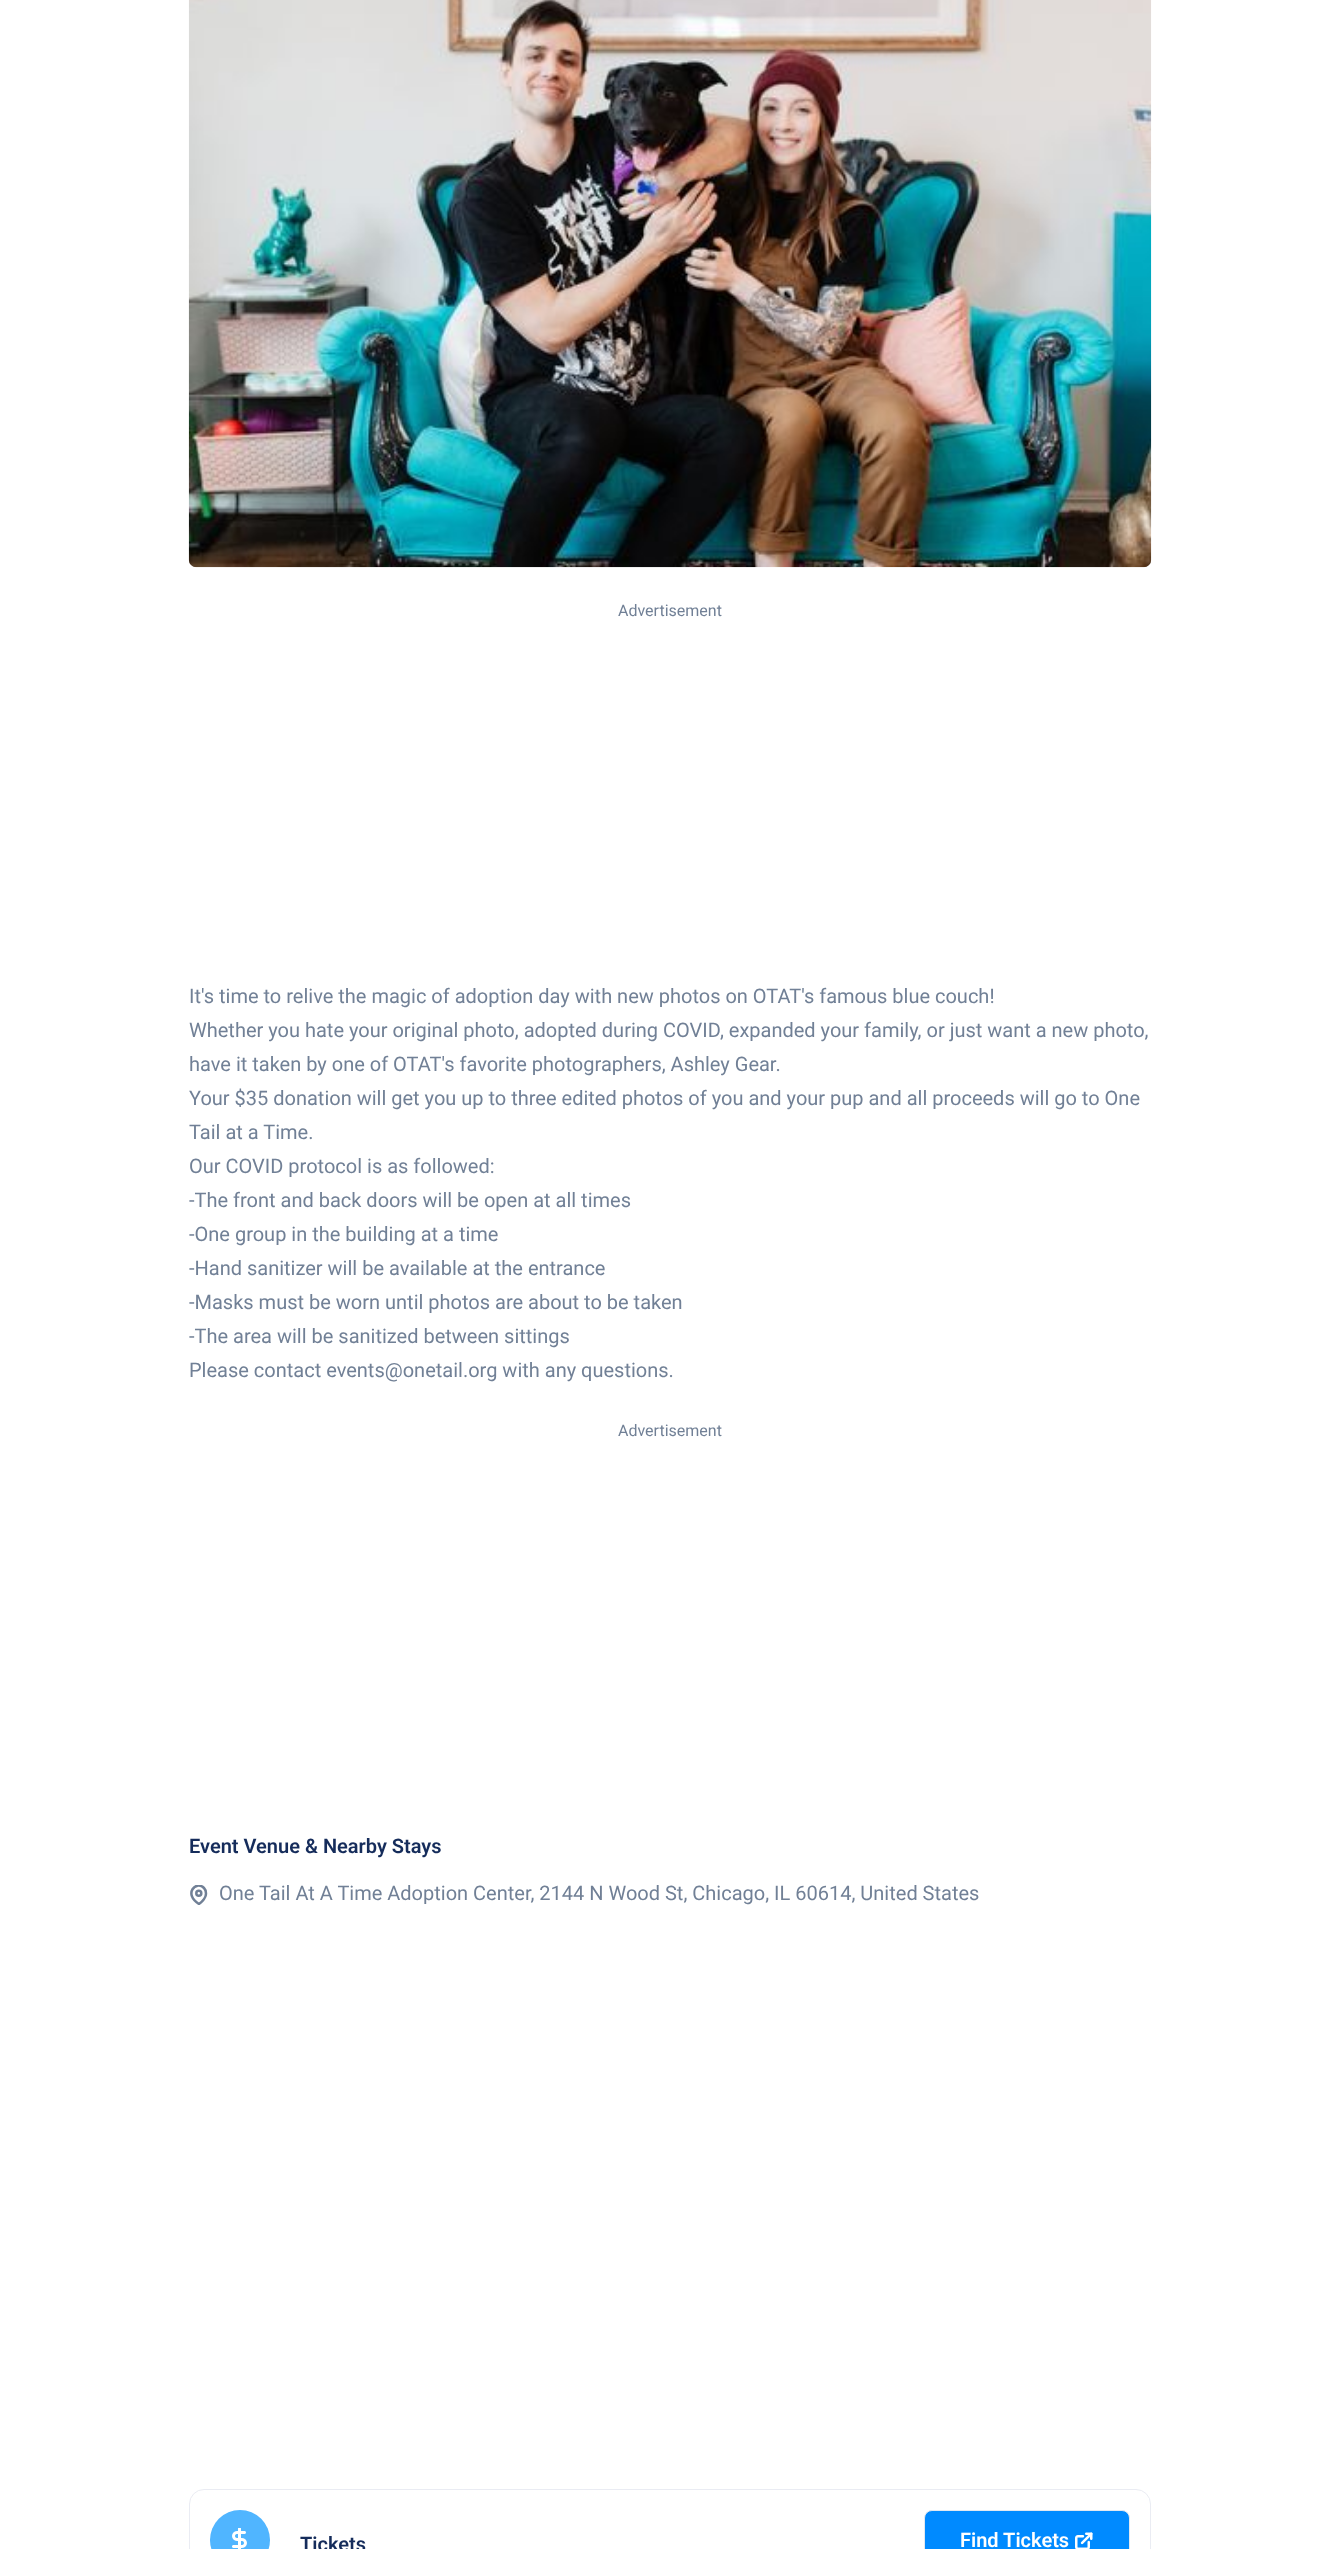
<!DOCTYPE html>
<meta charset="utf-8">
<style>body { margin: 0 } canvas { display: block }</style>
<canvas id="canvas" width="1340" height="2549"></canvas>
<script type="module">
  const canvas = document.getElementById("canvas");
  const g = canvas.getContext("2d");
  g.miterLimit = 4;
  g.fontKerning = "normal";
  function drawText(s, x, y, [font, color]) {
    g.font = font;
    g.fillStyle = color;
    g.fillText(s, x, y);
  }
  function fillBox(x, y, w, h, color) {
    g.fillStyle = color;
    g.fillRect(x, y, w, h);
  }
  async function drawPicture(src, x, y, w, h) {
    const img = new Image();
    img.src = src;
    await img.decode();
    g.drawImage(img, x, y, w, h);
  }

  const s1 = ["16px Roboto", "#718096"];
  const s2 = ["20px Roboto", "#718096"];
  const s3 = ["600 20px Roboto", "#152C5B"];
  const s4 = ["600 20px Roboto", "#FFFFFF"];

  fillBox(0, 0, 1340, 2549, "#FFFFFF");
  await drawPicture("pic1.png", 188, 0, 964, 568);
  drawText("Advertisement", 618, 616, s1);
  drawText("It's time to relive the magic of adoption day with new photos on OTAT's famous blue couch!", 189, 1003, s2);
  drawText("Whether you hate your original photo, adopted during COVID, expanded your family, or just want a new photo,", 189, 1037, s2);
  drawText("have it taken by one of OTAT's favorite photographers, Ashley Gear.", 189, 1071, s2);
  drawText("Your $35 donation will get you up to three edited photos of you and your pup and all proceeds will go to One", 189, 1105, s2);
  drawText("Tail at a Time.", 189, 1139, s2);
  drawText("Our COVID protocol is as followed:", 189, 1173, s2);
  drawText("-The front and back doors will be open at all times", 189, 1207, s2);
  drawText("-One group in the building at a time", 189, 1241, s2);
  drawText("-Hand sanitizer will be available at the entrance", 189, 1275, s2);
  drawText("-Masks must be worn until photos are about to be taken", 189, 1309, s2);
  drawText("-The area will be sanitized between sittings", 189, 1343, s2);
  drawText("Please contact events@onetail.org with any questions.", 189, 1377, s2);
  drawText("Advertisement", 618, 1436, s1);
  drawText("Event Venue & Nearby Stays", 189, 1853, s3);
  g.save();
  g.beginPath();
  g.rect(189, 1885, 20, 20);
  g.clip();
  g.beginPath();
  g.moveTo(206, 1893.5);
  g.bezierCurveTo(206, 1899, 199, 1904, 199, 1904);
  g.bezierCurveTo(183, 1894, 196, 1880, 204, 1888);
  g.bezierCurveTo(205.5, 1889.5, 206, 1891.5, 206, 1893.5);
  g.closePath();
  g.strokeStyle = "#718096";
  g.lineWidth = 2.5;
  g.lineCap = "round";
  g.lineJoin = "round";
  g.stroke();
  g.restore();
  drawText("One Tail At A Time Adoption Center, 2144 N Wood St, Chicago, IL 60614, United States", 219, 1900, s2);
  g.beginPath();
  g.arc(198.8, 1893.3, 2.5, 0, Math.PI * 2);
  g.strokeStyle = "#718096";
  g.lineWidth = 2.5;
  g.stroke();
  g.beginPath();
  g.roundRect(189.5, 2489.5, 961, 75, 14.5);
  g.strokeStyle = "#EAECF3";
  g.lineWidth = 1;
  g.stroke();
  g.fillStyle = "#50B5FF";
  g.beginPath();
  g.arc(240, 2540, 30, 0, Math.PI * 2);
  g.fill();
  await drawPicture("pic2.png", 232, 2528, 15, 21);
  drawText("Tickets", 300, 2551, s3);
  g.fillStyle = "#008AFF";
  g.beginPath();
  g.roundRect(924.5, 2510.5, 205, 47, 7.5);
  g.fill();
  g.strokeStyle = "#E2E8F0";
  g.stroke();
  drawText("Find Tickets", 960, 2547, s4);
  await drawPicture("pic3.png", 1075, 2532, 18, 17);
</script>
